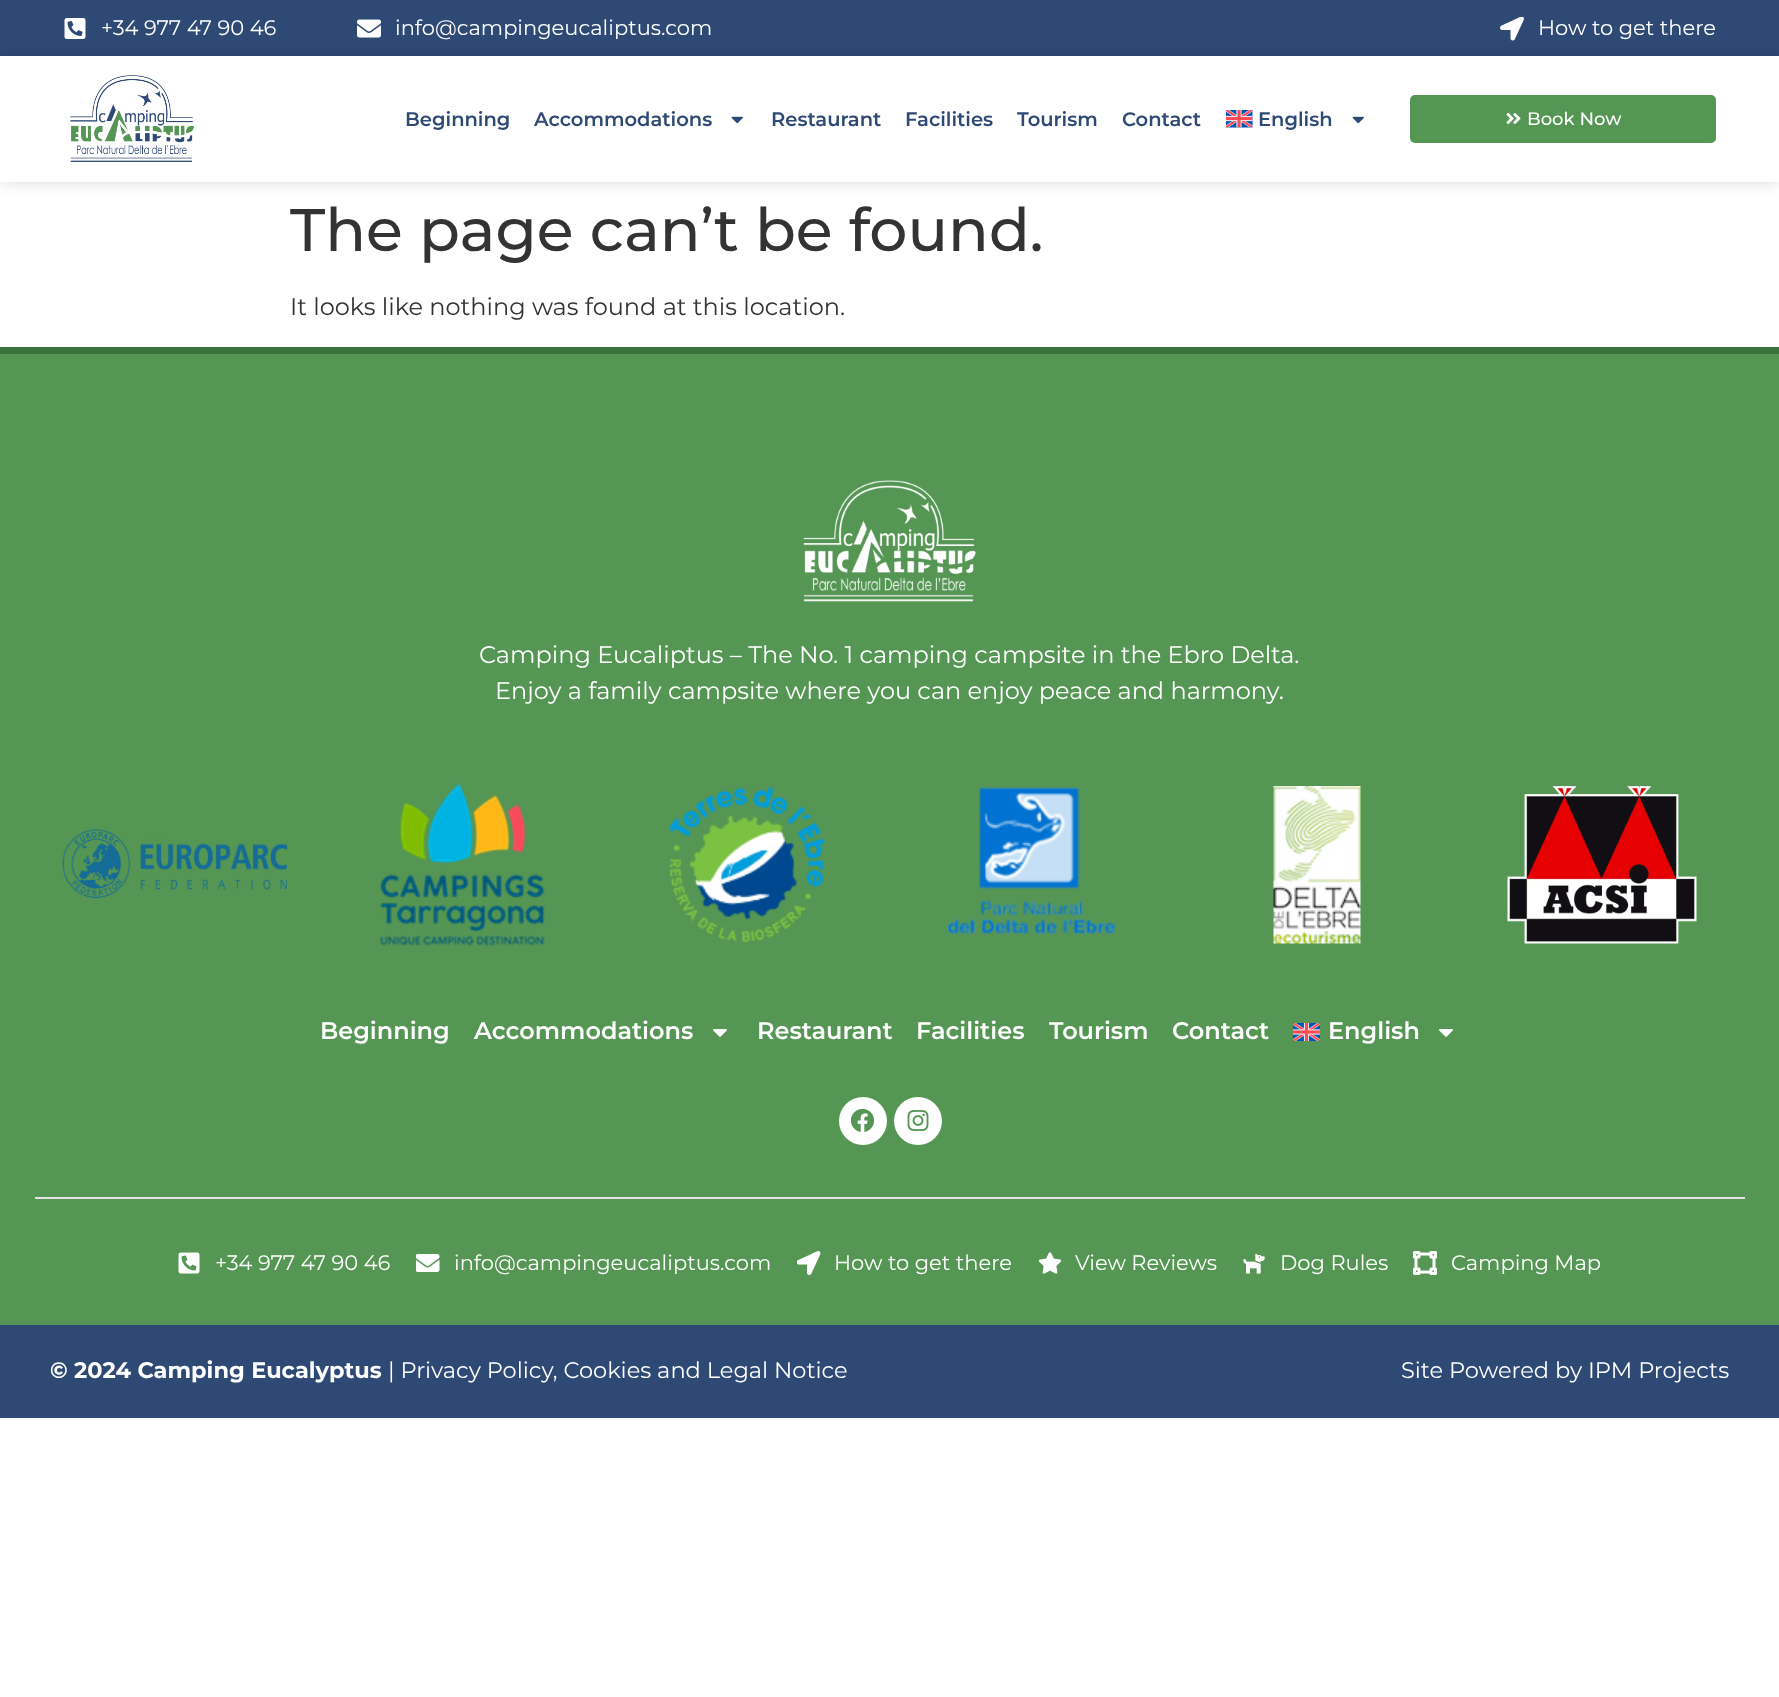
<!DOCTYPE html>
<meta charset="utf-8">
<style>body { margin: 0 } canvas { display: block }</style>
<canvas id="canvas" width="1779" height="1697"></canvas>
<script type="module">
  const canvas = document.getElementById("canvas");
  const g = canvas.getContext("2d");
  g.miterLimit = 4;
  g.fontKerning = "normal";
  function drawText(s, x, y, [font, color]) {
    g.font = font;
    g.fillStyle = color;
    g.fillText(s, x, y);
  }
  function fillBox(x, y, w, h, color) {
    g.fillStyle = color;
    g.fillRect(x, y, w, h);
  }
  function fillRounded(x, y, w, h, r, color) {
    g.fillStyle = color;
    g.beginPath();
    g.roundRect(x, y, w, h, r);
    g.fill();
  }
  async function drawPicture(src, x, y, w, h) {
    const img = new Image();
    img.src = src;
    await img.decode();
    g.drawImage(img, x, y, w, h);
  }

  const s1 = ["21px Montserrat", "#FFFFFF"];
  const s2 = ["600 19.5px Montserrat", "#2F4975"];
  const s3 = ["500 18px Montserrat", "#FFFFFF"];
  const s4 = ["500 60px Montserrat", "#333333"];
  const s5 = ["24px Montserrat", "#333333"];
  const s6 = ["24px Montserrat", "#FFFFFF"];
  const s7 = ["600 24px Montserrat", "#FFFFFF"];
  const s8 = ["bold 22.5px Montserrat", "#FFFFFF"];
  const s9 = ["22.5px Montserrat", "#FFFFFF"];

  fillBox(0, 0, 1779, 1697, "#FFFFFF");
  fillBox(0, 0, 1779, 56, "#2F4975");
  await drawPicture("pic1.png", 64, 18, 22, 21);
  drawText("+34 977 47 90 46", 101, 35, s1);
  await drawPicture("pic2.png", 357, 19, 24, 19);
  drawText("info@campingeucaliptus.com", 395, 35, s1);
  await drawPicture("pic3.png", 1500, 17, 24, 24);
  drawText("How to get there", 1538, 35, s1);
  g.fillStyle = "rgba(0, 0, 0, 0.14)";
  g.filter = "blur(7.5px)";
  g.beginPath();
  g.rect(0, 56, 1779, 126);
  g.fill();
  g.filter = "none";
  fillBox(0, 56, 1779, 126, "#FFFFFF");
  await drawPicture("pic4.png", 70, 75, 124, 87);
  drawText("Beginning", 405, 126, s2);
  drawText("Accommodations", 534, 126, s2);
  await drawPicture("pic5.png", 731, 116, 12, 8);
  drawText("Restaurant", 771, 126, s2);
  drawText("Facilities", 905, 126, s2);
  drawText("Tourism", 1017, 126, s2);
  drawText("Contact", 1122, 126, s2);
  await drawPicture("pic6.png", 1226, 110, 27, 18);
  drawText("English", 1258, 126, s2);
  await drawPicture("pic5.png", 1352, 116, 12, 8);
  fillRounded(1410, 95, 306, 48, 5, "#559654");
  await drawPicture("pic7.png", 1506, 112, 15, 13);
  drawText("Book Now", 1527, 125, s3);
  drawText("The page can’t be found.", 290, 251, s4);
  drawText("It looks like nothing was found at this location.", 290, 315, s5);
  fillBox(0, 354, 1779, 971, "#559654");
  fillBox(0, 347, 1779, 7, "#3C723C");
  await drawPicture("pic8.png", 803, 480, 173, 122);
  drawText("Camping Eucaliptus – The No. 1 camping campsite in the Ebro Delta.", 479, 663, s6);
  drawText("Enjoy a family campsite where you can enjoy peace and harmony.", 495, 699, s6);
  await drawPicture("pic9.png", 62, 829, 226, 70);
  await drawPicture("pic10.png", 379, 783, 166, 163);
  await drawPicture("pic11.png", 669, 787, 156, 155);
  await drawPicture("pic12.png", 947, 787, 170, 148);
  await drawPicture("pic13.png", 1273, 786, 88, 158);
  await drawPicture("pic14.png", 1507, 786, 190, 158);
  drawText("Beginning", 320, 1039, s7);
  drawText("Accommodations", 474, 1039, s7);
  await drawPicture("pic15.png", 713, 1029, 14, 8);
  drawText("Restaurant", 757, 1039, s7);
  drawText("Facilities", 916, 1039, s7);
  drawText("Tourism", 1049, 1039, s7);
  drawText("Contact", 1172, 1039, s7);
  await drawPicture("pic16.png", 1293, 1023, 27, 18);
  drawText("English", 1328, 1039, s7);
  await drawPicture("pic15.png", 1439, 1029, 14, 8);
  g.beginPath();
  g.arc(863, 1121, 24, 0, Math.PI * 2);
  g.fill();
  await drawPicture("pic17.png", 851, 1109, 24, 23);
  g.beginPath();
  g.arc(918, 1121, 24, 0, Math.PI * 2);
  g.fill();
  await drawPicture("pic18.png", 907, 1110, 22, 21);
  fillBox(35, 1197, 1710, 2, "#E4E4E4");
  await drawPicture("pic19.png", 178, 1252, 22, 22);
  drawText("+34 977 47 90 46", 215, 1270, s1);
  await drawPicture("pic20.png", 416, 1254, 24, 18);
  drawText("info@campingeucaliptus.com", 454, 1270, s1);
  await drawPicture("pic21.png", 797, 1251, 24, 24);
  drawText("How to get there", 834, 1270, s1);
  await drawPicture("pic22.png", 1038, 1252, 24, 22);
  drawText("View Reviews", 1075, 1270, s1);
  await drawPicture("pic23.png", 1243, 1253, 22, 21);
  drawText("Dog Rules", 1280, 1270, s1);
  await drawPicture("pic24.png", 1413, 1251, 24, 24);
  drawText("Camping Map", 1451, 1270, s1);
  fillBox(0, 1325, 1779, 93, "#2F4975");
  drawText("© 2024 Camping Eucalyptus", 50, 1378, s8);
  drawText("| Privacy Policy, Cookies and Legal Notice", 388, 1378, s9);
  drawText("Site Powered by IPM Projects", 1401, 1378, s9);
</script>
